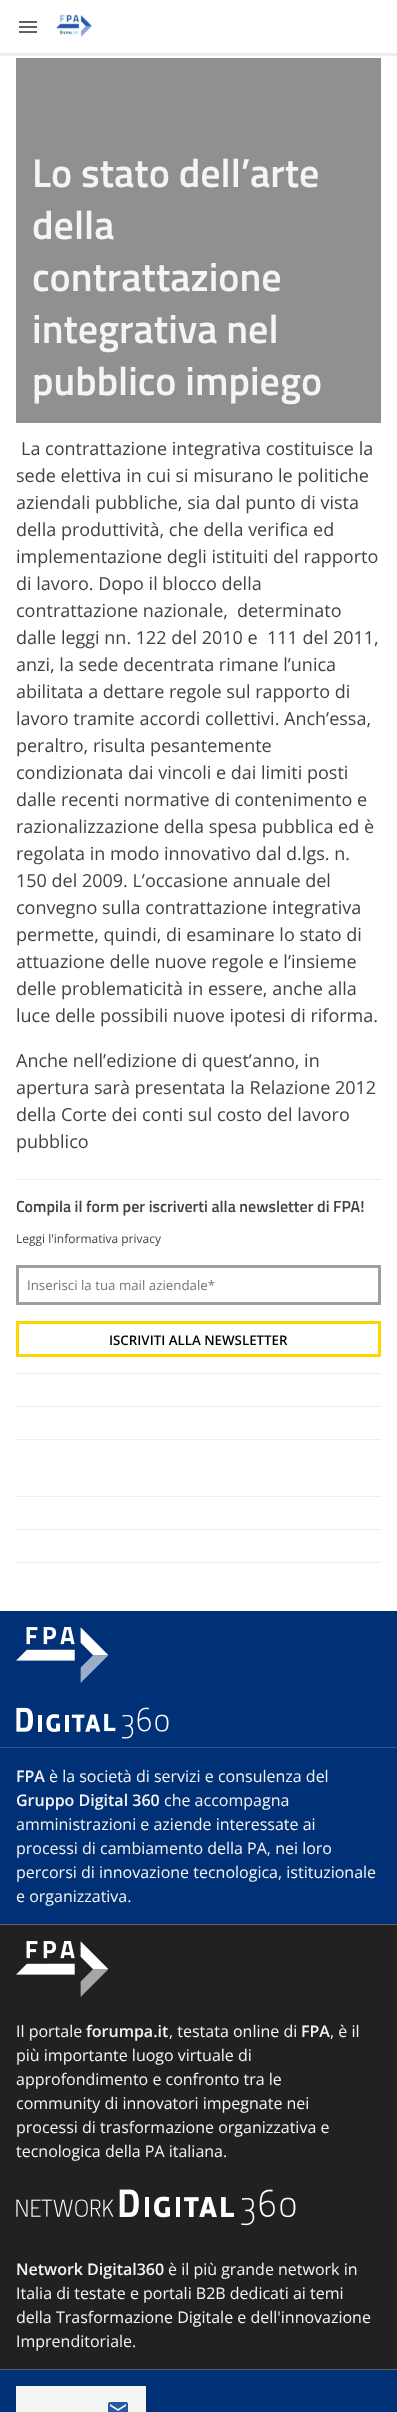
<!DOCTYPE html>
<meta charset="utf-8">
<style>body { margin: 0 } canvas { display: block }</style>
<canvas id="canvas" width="397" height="2412"></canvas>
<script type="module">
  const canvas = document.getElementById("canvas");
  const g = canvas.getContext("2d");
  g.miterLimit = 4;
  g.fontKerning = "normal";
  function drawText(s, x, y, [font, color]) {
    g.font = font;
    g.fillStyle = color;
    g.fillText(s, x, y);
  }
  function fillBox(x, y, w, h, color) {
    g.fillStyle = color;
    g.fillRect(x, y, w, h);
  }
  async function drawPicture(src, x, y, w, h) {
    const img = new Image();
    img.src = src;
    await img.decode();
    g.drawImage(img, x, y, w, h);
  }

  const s1 = ["600 40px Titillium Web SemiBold", "#F5F5F5"];
  const s2 = ["18px Open Sans", "#424242"];
  const s3 = ["600 16px Titillium Web SemiBold", "#424242"];
  const s4 = ["12px Open Sans", "#424242"];
  const s5 = ["13.3px Open Sans", "#757575"];
  const s6 = ["600 13.3px Open Sans", "#000000"];
  const s7 = ["600 16px Open Sans", "#F5F5F5"];
  const s8 = ["16px Open Sans", "#F5F5F5"];

  fillBox(0, 0, 397, 2412, "#FFFFFF");
  fillBox(0, 53, 397, 3, "#EEEEEE");
  await drawPicture("pic1.png", 19, 21, 18, 12);
  await drawPicture("pic2.png", 56, 14, 36, 23);
  fillBox(16, 58, 365, 365, "#909090");
  drawText("Lo stato dell’arte", 32, 187, s1);
  drawText("della", 32, 239, s1);
  drawText("contrattazione", 32, 291, s1);
  drawText("integrativa nel", 32, 343, s1);
  drawText("pubblico impiego", 32, 395, s1);
  drawText("La contrattazione integrativa costituisce la", 21, 455, s2);
  drawText("sede elettiva in cui si misurano le politiche", 16, 482, s2);
  drawText("aziendali pubbliche, sia dal punto di vista", 16, 509, s2);
  drawText("della produttività, che della verifica ed", 16, 536, s2);
  drawText("implementazione degli istituiti del rapporto", 16, 563, s2);
  drawText("di lavoro. Dopo il blocco della", 16, 590, s2);
  drawText("contrattazione nazionale,", 16, 617, s2);
  drawText("determinato", 237, 617, s2);
  drawText("dalle leggi nn. 122 del 2010 e", 16, 644, s2);
  drawText("111 del 2011,", 267, 644, s2);
  drawText("anzi, la sede decentrata rimane l’unica", 16, 671, s2);
  drawText("abilitata a dettare regole sul rapporto di", 16, 698, s2);
  drawText("lavoro tramite accordi collettivi. Anch’essa,", 16, 725, s2);
  drawText("peraltro, risulta pesantemente", 16, 752, s2);
  drawText("condizionata dai vincoli e dai limiti posti", 16, 779, s2);
  drawText("dalle recenti normative di contenimento e", 16, 806, s2);
  drawText("razionalizzazione della spesa pubblica ed è", 16, 833, s2);
  drawText("regolata in modo innovativo dal d.lgs. n.", 16, 860, s2);
  drawText("150 del 2009. L’occasione annuale del", 16, 887, s2);
  drawText("convegno sulla contrattazione integrativa", 16, 914, s2);
  drawText("permette, quindi, di esaminare lo stato di", 16, 941, s2);
  drawText("attuazione delle nuove regole e l’insieme", 16, 968, s2);
  drawText("delle problematicità in essere, anche alla", 16, 995, s2);
  drawText("luce delle possibili nuove ipotesi di riforma.", 16, 1022, s2);
  drawText("Anche nell’edizione di quest’anno, in", 16, 1067, s2);
  drawText("apertura sarà presentata la Relazione 2012", 16, 1094, s2);
  drawText("della Corte dei conti sul costo del lavoro", 16, 1121, s2);
  drawText("pubblico", 16, 1148, s2);
  fillBox(16, 1179, 365, 1, "#EEEEEE");
  fillBox(16, 1373, 365, 1, "#EEEEEE");
  drawText("Compila il form per iscriverti alla newsletter di FPA!", 16, 1212, s3);
  drawText("Leggi l'informativa privacy", 16, 1243, s4);
  g.strokeStyle = "#9E9E9E";
  g.lineWidth = 3;
  g.strokeRect(17.5, 1266.5, 362, 37);
  drawText("Inserisci la tua mail aziendale*", 27, 1290, s5);
  g.strokeStyle = "#FFD600";
  g.strokeRect(17.5, 1322.5, 362, 33);
  drawText("ISCRIVITI ALLA NEWSLETTER", 109, 1345, s6);
  fillBox(16, 1406, 365, 1, "#EEEEEE");
  fillBox(16, 1439, 365, 1, "#EEEEEE");
  fillBox(16, 1496, 365, 1, "#EEEEEE");
  fillBox(16, 1529, 365, 1, "#EEEEEE");
  fillBox(16, 1562, 365, 1, "#EEEEEE");
  fillBox(0, 1611, 397, 136, "#003176");
  fillBox(0, 1747, 397, 1, "#2659A5");
  await drawPicture("pic3.png", 16, 1627, 92, 56);
  await drawPicture("pic4.png", 16, 1707, 153, 32);
  fillBox(0, 1748, 397, 176, "#003176");
  fillBox(0, 1924, 397, 1, "#616161");
  drawText("FPA", 16, 1782, s7);
  drawText("è la società di servizi e consulenza del", 49, 1782, s8);
  drawText("Gruppo Digital 360", 16, 1806, s7);
  drawText("che accompagna", 164, 1806, s8);
  drawText("amministrazioni e aziende interessate ai", 16, 1830, s8);
  drawText("processi di cambiamento della PA, nei loro", 16, 1854, s8);
  drawText("percorsi di innovazione tecnologica, istituzionale", 16, 1878, s8);
  drawText("e organizzativa.", 16, 1902, s8);
  fillBox(0, 1925, 397, 444, "#212121");
  await drawPicture("pic5.png", 16, 1941, 92, 56);
  drawText("Il portale", 16, 2037, s8);
  drawText("forumpa.it", 86, 2037, s7);
  drawText(", testata online di", 169, 2037, s8);
  drawText("FPA", 301, 2037, s7);
  drawText(", è il", 330, 2037, s8);
  drawText("più importante luogo virtuale di", 16, 2061, s8);
  drawText("approfondimento e confronto tra le", 16, 2085, s8);
  drawText("community di innovatori impegnate nei", 16, 2109, s8);
  drawText("processi di trasformazione organizzativa e", 16, 2133, s8);
  drawText("tecnologica della PA italiana.", 16, 2157, s8);
  await drawPicture("pic6.png", 16, 2189, 280, 37);
  drawText("Network Digital360", 16, 2275, s7);
  drawText("è il più grande network in", 168, 2275, s8);
  drawText("Italia di testate e portali B2B dedicati ai temi", 16, 2299, s8);
  drawText("della Trasformazione Digitale e dell'innovazione", 16, 2323, s8);
  drawText("Imprenditoriale.", 16, 2347, s8);
  fillBox(0, 2370, 397, 42, "#003176");
  fillBox(0, 2369, 397, 1, "#616161");
  fillBox(16, 2386, 130, 26, "#F5F5F5");
  await drawPicture("pic7.png", 108, 2402, 20, 10);
</script>
